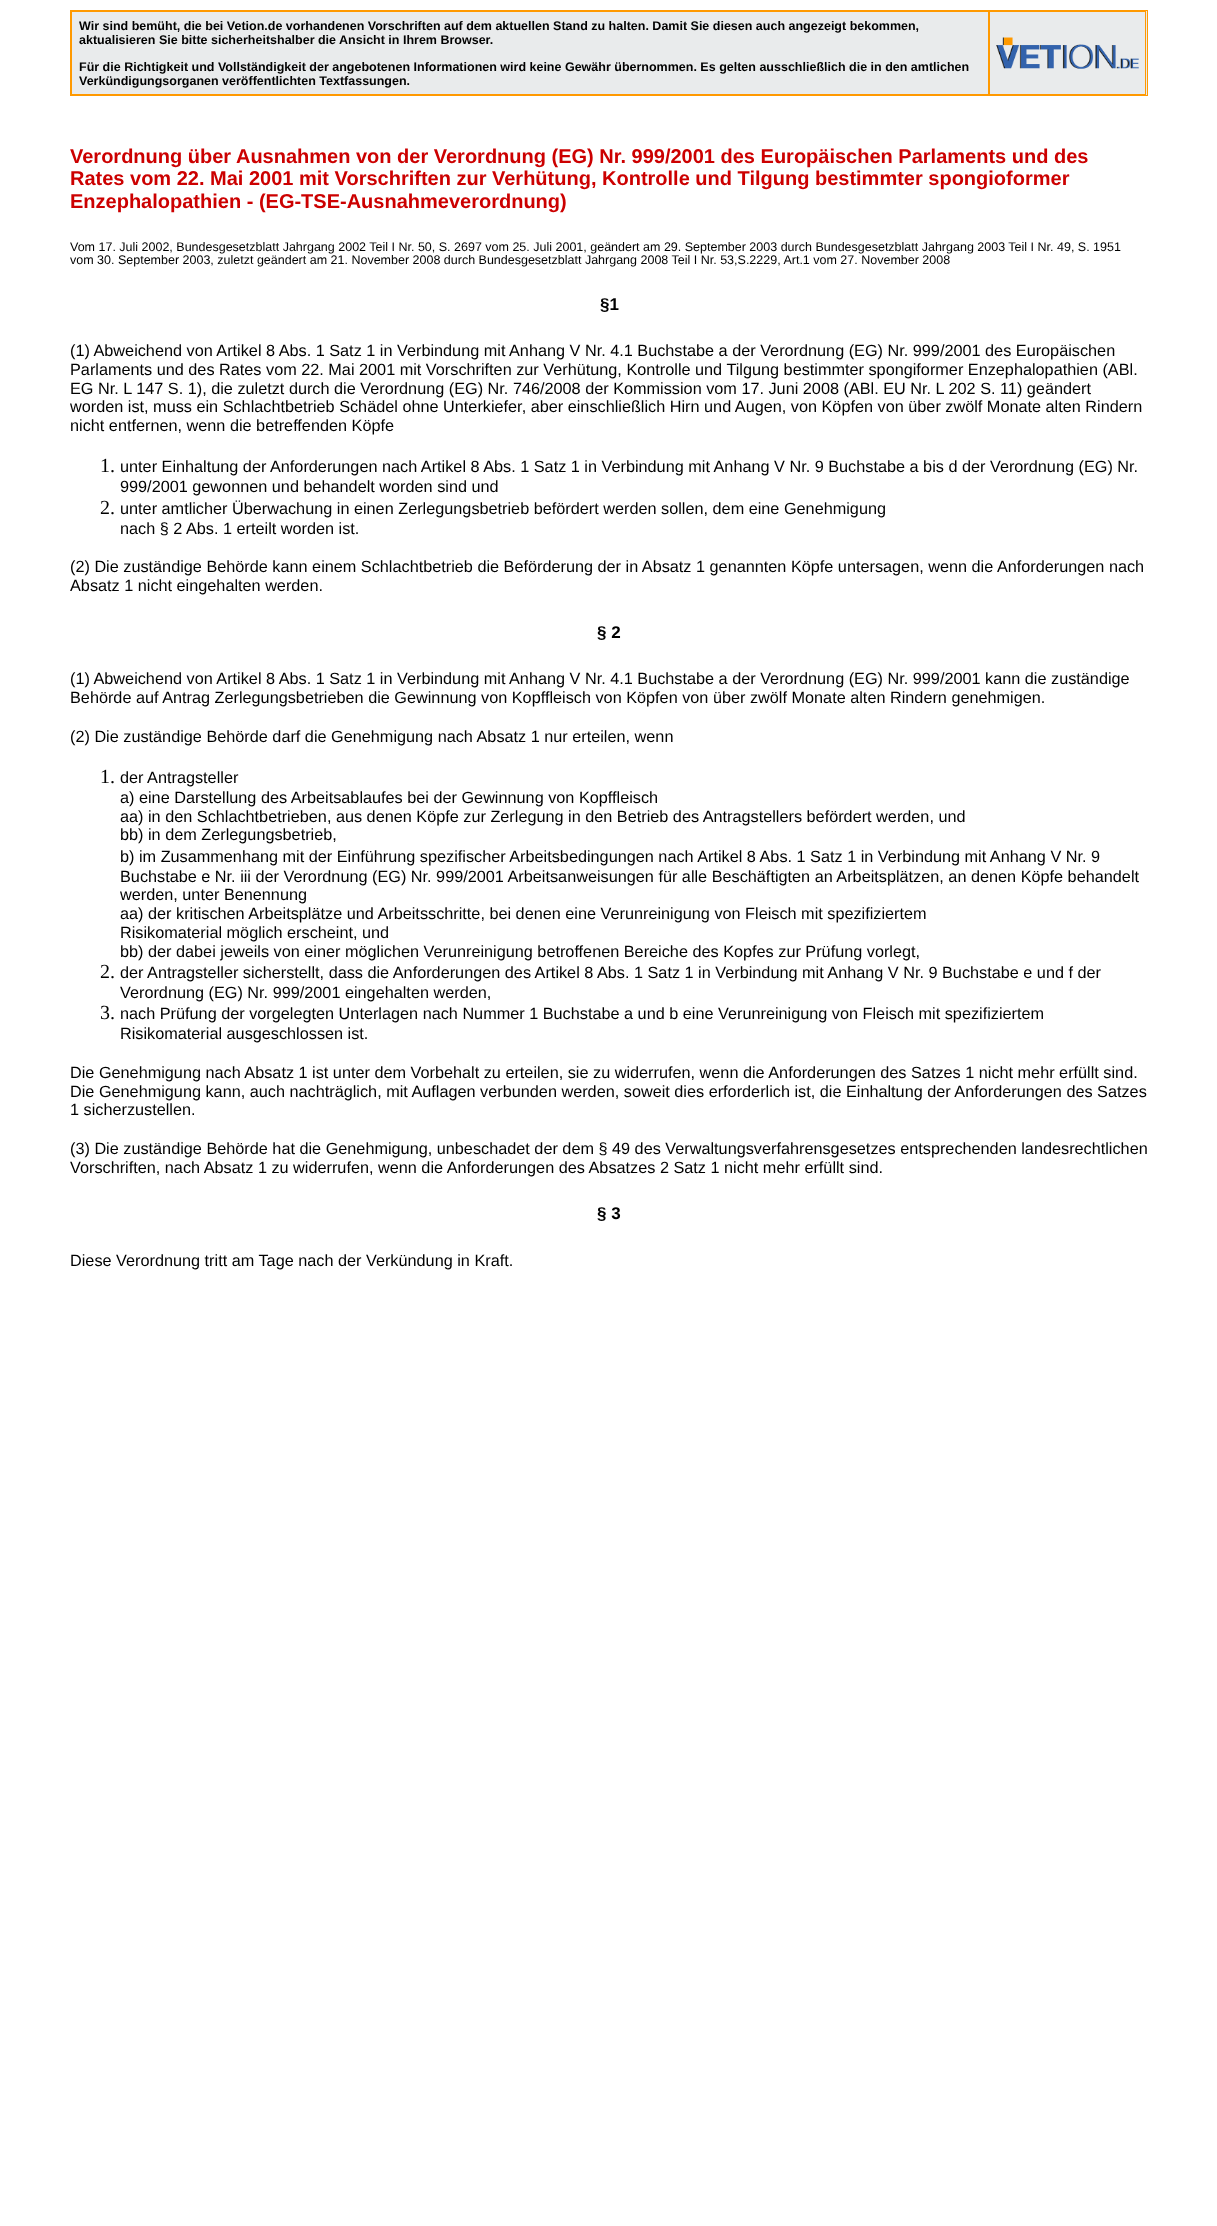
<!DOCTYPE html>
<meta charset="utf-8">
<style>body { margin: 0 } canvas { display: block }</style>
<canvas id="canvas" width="1217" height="2226"></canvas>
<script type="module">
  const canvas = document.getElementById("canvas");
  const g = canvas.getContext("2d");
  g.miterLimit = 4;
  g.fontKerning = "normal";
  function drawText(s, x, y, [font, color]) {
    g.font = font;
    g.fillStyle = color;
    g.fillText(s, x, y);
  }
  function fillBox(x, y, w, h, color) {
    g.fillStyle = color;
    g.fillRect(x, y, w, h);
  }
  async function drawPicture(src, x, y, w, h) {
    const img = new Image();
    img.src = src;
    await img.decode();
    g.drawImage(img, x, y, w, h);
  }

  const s1 = ["bold 12.5px Liberation Sans", "#000000"];
  const s2 = ["bold 20px Liberation Sans", "#CC0000"];
  const s3 = ["12.5px Liberation Sans", "#000000"];
  const s4 = ["bold 17px Liberation Sans", "#000000"];
  const s5 = ["16.25px Liberation Sans", "#000000"];
  const s6 = ["20px Liberation Serif", "#000000"];

  fillBox(0, 0, 1217, 2226, "#FFFFFF");
  fillBox(72, 11, 1075, 84, "#E9EBEC");
  g.strokeStyle = "#FF9900";
  g.strokeRect(70.5, 10.5, 1077, 85);
  g.strokeRect(71.5, 11.5, 917, 83);
  drawText("Wir sind bemüht, die bei Vetion.de vorhandenen Vorschriften auf dem aktuellen Stand zu halten. Damit Sie diesen auch angezeigt bekommen,", 79, 30, s1);
  drawText("aktualisieren Sie bitte sicherheitshalber die Ansicht in Ihrem Browser.", 79, 44, s1);
  drawText("Für die Richtigkeit und Vollständigkeit der angebotenen Informationen wird keine Gewähr übernommen. Es gelten ausschließlich die in den amtlichen", 79, 71, s1);
  drawText("Verkündigungsorganen veröffentlichten Textfassungen.", 79, 85, s1);
  g.strokeRect(989.5, 11.5, 156, 83);
  await drawPicture("pic1.png", 996, 37, 143, 32);
  drawText("Verordnung über Ausnahmen von der Verordnung (EG) Nr. 999/2001 des Europäischen Parlaments und des", 70, 163, s2);
  drawText("Rates vom 22. Mai 2001 mit Vorschriften zur Verhütung, Kontrolle und Tilgung bestimmter spongioformer", 70, 185, s2);
  drawText("Enzephalopathien - (EG-TSE-Ausnahmeverordnung)", 70, 208, s2);
  drawText("Vom 17. Juli 2002, Bundesgesetzblatt Jahrgang 2002 Teil I Nr. 50, S. 2697 vom 25. Juli 2001, geändert am 29. September 2003 durch Bundesgesetzblatt Jahrgang 2003 Teil I Nr. 49, S. 1951", 70, 251, s3);
  drawText("vom 30. September 2003, zuletzt geändert am 21. November 2008 durch Bundesgesetzblatt Jahrgang 2008 Teil I Nr. 53,S.2229, Art.1 vom 27. November 2008", 70, 264, s3);
  drawText("§1", 600, 310, s4);
  drawText("(1) Abweichend von Artikel 8 Abs. 1 Satz 1 in Verbindung mit Anhang V Nr. 4.1 Buchstabe a der Verordnung (EG) Nr. 999/2001 des Europäischen", 70, 356, s5);
  drawText("Parlaments und des Rates vom 22. Mai 2001 mit Vorschriften zur Verhütung, Kontrolle und Tilgung bestimmter spongiformer Enzephalopathien (ABl.", 70, 375, s5);
  drawText("EG Nr. L 147 S. 1), die zuletzt durch die Verordnung (EG) Nr. 746/2008 der Kommission vom 17. Juni 2008 (ABl. EU Nr. L 202 S. 11) geändert", 70, 394, s5);
  drawText("worden ist, muss ein Schlachtbetrieb Schädel ohne Unterkiefer, aber einschließlich Hirn und Augen, von Köpfen von über zwölf Monate alten Rindern", 70, 412, s5);
  drawText("nicht entfernen, wenn die betreffenden Köpfe", 70, 431, s5);
  drawText("1.", 100, 472, s6);
  drawText("unter Einhaltung der Anforderungen nach Artikel 8 Abs. 1 Satz 1 in Verbindung mit Anhang V Nr. 9 Buchstabe a bis d der Verordnung (EG) Nr.", 120, 472, s5);
  drawText("999/2001 gewonnen und behandelt worden sind und", 120, 492, s5);
  drawText("2.", 100, 514, s6);
  drawText("unter amtlicher Überwachung in einen Zerlegungsbetrieb befördert werden sollen, dem eine Genehmigung", 120, 514, s5);
  drawText("nach § 2 Abs. 1 erteilt worden ist.", 120, 534, s5);
  drawText("(2) Die zuständige Behörde kann einem Schlachtbetrieb die Beförderung der in Absatz 1 genannten Köpfe untersagen, wenn die Anforderungen nach", 70, 572, s5);
  drawText("Absatz 1 nicht eingehalten werden.", 70, 591, s5);
  drawText("§ 2", 597, 638, s4);
  drawText("(1) Abweichend von Artikel 8 Abs. 1 Satz 1 in Verbindung mit Anhang V Nr. 4.1 Buchstabe a der Verordnung (EG) Nr. 999/2001 kann die zuständige", 70, 684, s5);
  drawText("Behörde auf Antrag Zerlegungsbetrieben die Gewinnung von Kopffleisch von Köpfen von über zwölf Monate alten Rindern genehmigen.", 70, 703, s5);
  drawText("(2) Die zuständige Behörde darf die Genehmigung nach Absatz 1 nur erteilen, wenn", 70, 742, s5);
  drawText("1.", 100, 783, s6);
  drawText("der Antragsteller", 120, 783, s5);
  drawText("a) eine Darstellung des Arbeitsablaufes bei der Gewinnung von Kopffleisch", 120, 803, s5);
  drawText("aa) in den Schlachtbetrieben, aus denen Köpfe zur Zerlegung in den Betrieb des Antragstellers befördert werden, und", 120, 822, s5);
  drawText("bb) in dem Zerlegungsbetrieb,", 120, 840, s5);
  drawText("b) im Zusammenhang mit der Einführung spezifischer Arbeitsbedingungen nach Artikel 8 Abs. 1 Satz 1 in Verbindung mit Anhang V Nr. 9", 120, 862, s5);
  drawText("Buchstabe e Nr. iii der Verordnung (EG) Nr. 999/2001 Arbeitsanweisungen für alle Beschäftigten an Arbeitsplätzen, an denen Köpfe behandelt", 120, 882, s5);
  drawText("werden, unter Benennung", 120, 900, s5);
  drawText("aa) der kritischen Arbeitsplätze und Arbeitsschritte, bei denen eine Verunreinigung von Fleisch mit spezifiziertem", 120, 919, s5);
  drawText("Risikomaterial möglich erscheint, und", 120, 938, s5);
  drawText("bb) der dabei jeweils von einer möglichen Verunreinigung betroffenen Bereiche des Kopfes zur Prüfung vorlegt,", 120, 957, s5);
  drawText("2.", 100, 978, s6);
  drawText("der Antragsteller sicherstellt, dass die Anforderungen des Artikel 8 Abs. 1 Satz 1 in Verbindung mit Anhang V Nr. 9 Buchstabe e und f der", 120, 978, s5);
  drawText("Verordnung (EG) Nr. 999/2001 eingehalten werden,", 120, 998, s5);
  drawText("3.", 100, 1019, s6);
  drawText("nach Prüfung der vorgelegten Unterlagen nach Nummer 1 Buchstabe a und b eine Verunreinigung von Fleisch mit spezifiziertem", 120, 1019, s5);
  drawText("Risikomaterial ausgeschlossen ist.", 120, 1039, s5);
  drawText("Die Genehmigung nach Absatz 1 ist unter dem Vorbehalt zu erteilen, sie zu widerrufen, wenn die Anforderungen des Satzes 1 nicht mehr erfüllt sind.", 70, 1078, s5);
  drawText("Die Genehmigung kann, auch nachträglich, mit Auflagen verbunden werden, soweit dies erforderlich ist, die Einhaltung der Anforderungen des Satzes", 70, 1097, s5);
  drawText("1 sicherzustellen.", 70, 1115, s5);
  drawText("(3) Die zuständige Behörde hat die Genehmigung, unbeschadet der dem § 49 des Verwaltungsverfahrensgesetzes entsprechenden landesrechtlichen", 70, 1154, s5);
  drawText("Vorschriften, nach Absatz 1 zu widerrufen, wenn die Anforderungen des Absatzes 2 Satz 1 nicht mehr erfüllt sind.", 70, 1173, s5);
  drawText("§ 3", 597, 1219, s4);
  drawText("Diese Verordnung tritt am Tage nach der Verkündung in Kraft.", 70, 1266, s5);
</script>
